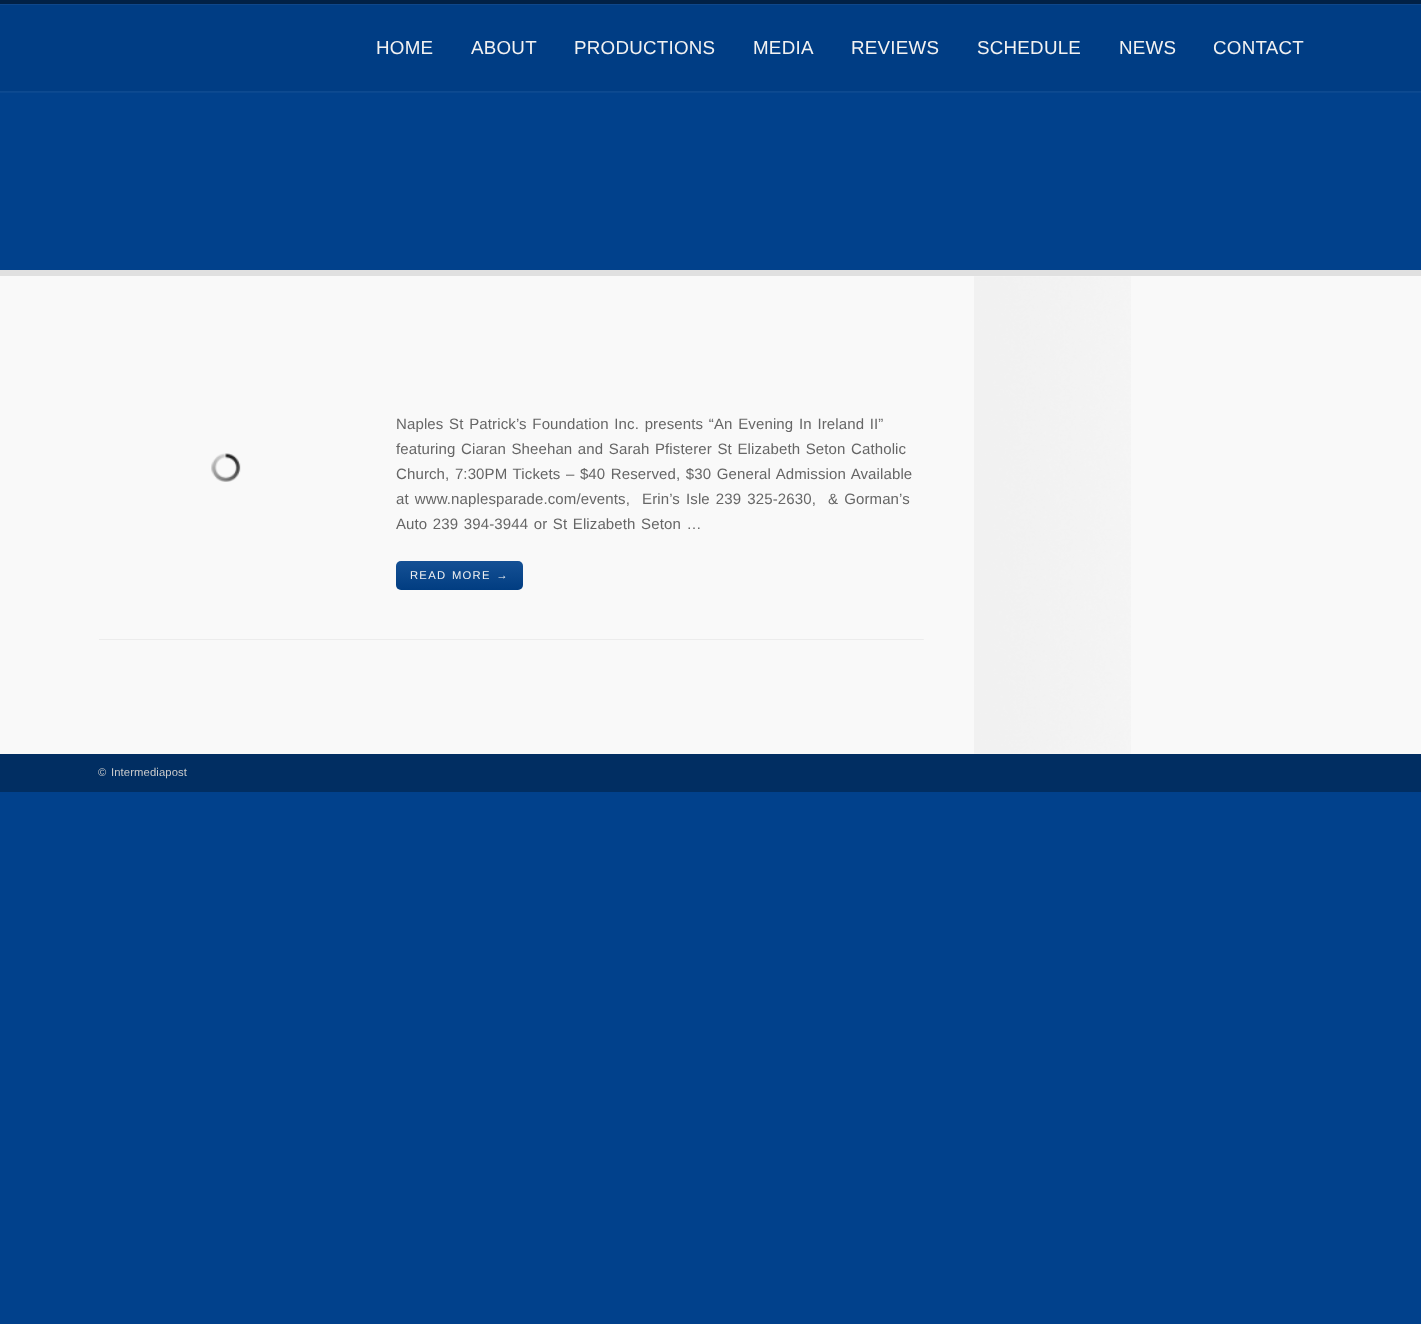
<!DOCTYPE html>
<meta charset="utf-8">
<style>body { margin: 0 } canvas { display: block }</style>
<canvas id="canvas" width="1421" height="1324"></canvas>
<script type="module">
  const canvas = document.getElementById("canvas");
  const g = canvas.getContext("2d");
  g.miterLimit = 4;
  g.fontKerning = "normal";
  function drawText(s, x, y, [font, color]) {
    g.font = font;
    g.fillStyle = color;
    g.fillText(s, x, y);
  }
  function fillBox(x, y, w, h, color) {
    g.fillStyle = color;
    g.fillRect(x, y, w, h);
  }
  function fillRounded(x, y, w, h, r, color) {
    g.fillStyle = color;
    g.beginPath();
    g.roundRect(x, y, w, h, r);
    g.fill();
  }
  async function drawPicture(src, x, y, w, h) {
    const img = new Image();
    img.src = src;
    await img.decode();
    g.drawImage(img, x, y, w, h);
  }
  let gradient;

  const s1 = ["18.75px Liberation Sans", "#F2F2F2"];
  const s2 = ["15px Liberation Sans", "#666666"];
  const s3 = ["11.25px Liberation Sans", "#F2F2F2"];
  const s4 = ["11.25px Liberation Sans", "#CCCCCC"];

  fillBox(0, 0, 1421, 1324, "#01418C");
  fillBox(0, 0, 1421, 4, "#012146");
  await drawPicture("pic1.png", 0, 5, 1421, 88);
  fillBox(0, 4, 1421, 1, "#0E478B");
  g.letterSpacing = "0.25px";
  drawText("HOME", 376, 54, s1);
  drawText("ABOUT", 471, 54, s1);
  drawText("PRODUCTIONS", 574, 54, s1);
  drawText("MEDIA", 753, 54, s1);
  drawText("REVIEWS", 851, 54, s1);
  drawText("SCHEDULE", 977, 54, s1);
  drawText("NEWS", 1119, 54, s1);
  drawText("CONTACT", 1213, 54, s1);
  fillBox(0, 276, 1421, 478, "#F9F9F9");
  fillBox(0, 270, 1421, 6, "#E0E0E0");
  await drawPicture("pic2.png", 974, 276, 157, 478);
  await drawPicture("pic3.png", 99, 639, 825, 1);
  await drawPicture("pic4.png", 211, 453, 30, 29);
  g.letterSpacing = "0.12px";
  g.wordSpacing = "1.4px";
  drawText("Naples St Patrick’s Foundation Inc. presents “An Evening In Ireland II”", 396, 429, s2);
  g.wordSpacing = "1.25px";
  drawText("featuring Ciaran Sheehan and Sarah Pfisterer St Elizabeth Seton Catholic", 396, 454, s2);
  drawText("Church, 7:30PM Tickets – $40 Reserved, $30 General Admission Available", 396, 479, s2);
  g.wordSpacing = "1.75px";
  drawText("at www.naplesparade.com/events,  Erin’s Isle 239 325-2630,  & Gorman’s", 396, 504, s2);
  g.wordSpacing = "1.25px";
  drawText("Auto 239 394-3944 or St Elizabeth Seton …", 396, 529, s2);
  fillRounded(396, 561, 127, 29, 5, "#01428C");
  gradient = g.createLinearGradient(459, 561, 459, 590);
  gradient.addColorStop(0, "rgba(255, 255, 255, 0.08)");
  gradient.addColorStop(1, "rgba(0, 0, 0, 0.08)");
  g.fillStyle = gradient;
  g.beginPath();
  g.roundRect(396, 561, 127, 29, 5);
  g.fill();
  g.letterSpacing = "1.25px";
  drawText("READ MORE →", 410, 579, s3);
  fillBox(0, 754, 1421, 38, "#012E62");
  g.letterSpacing = "0.12px";
  drawText("© Intermediapost", 98, 776, s4);
</script>
